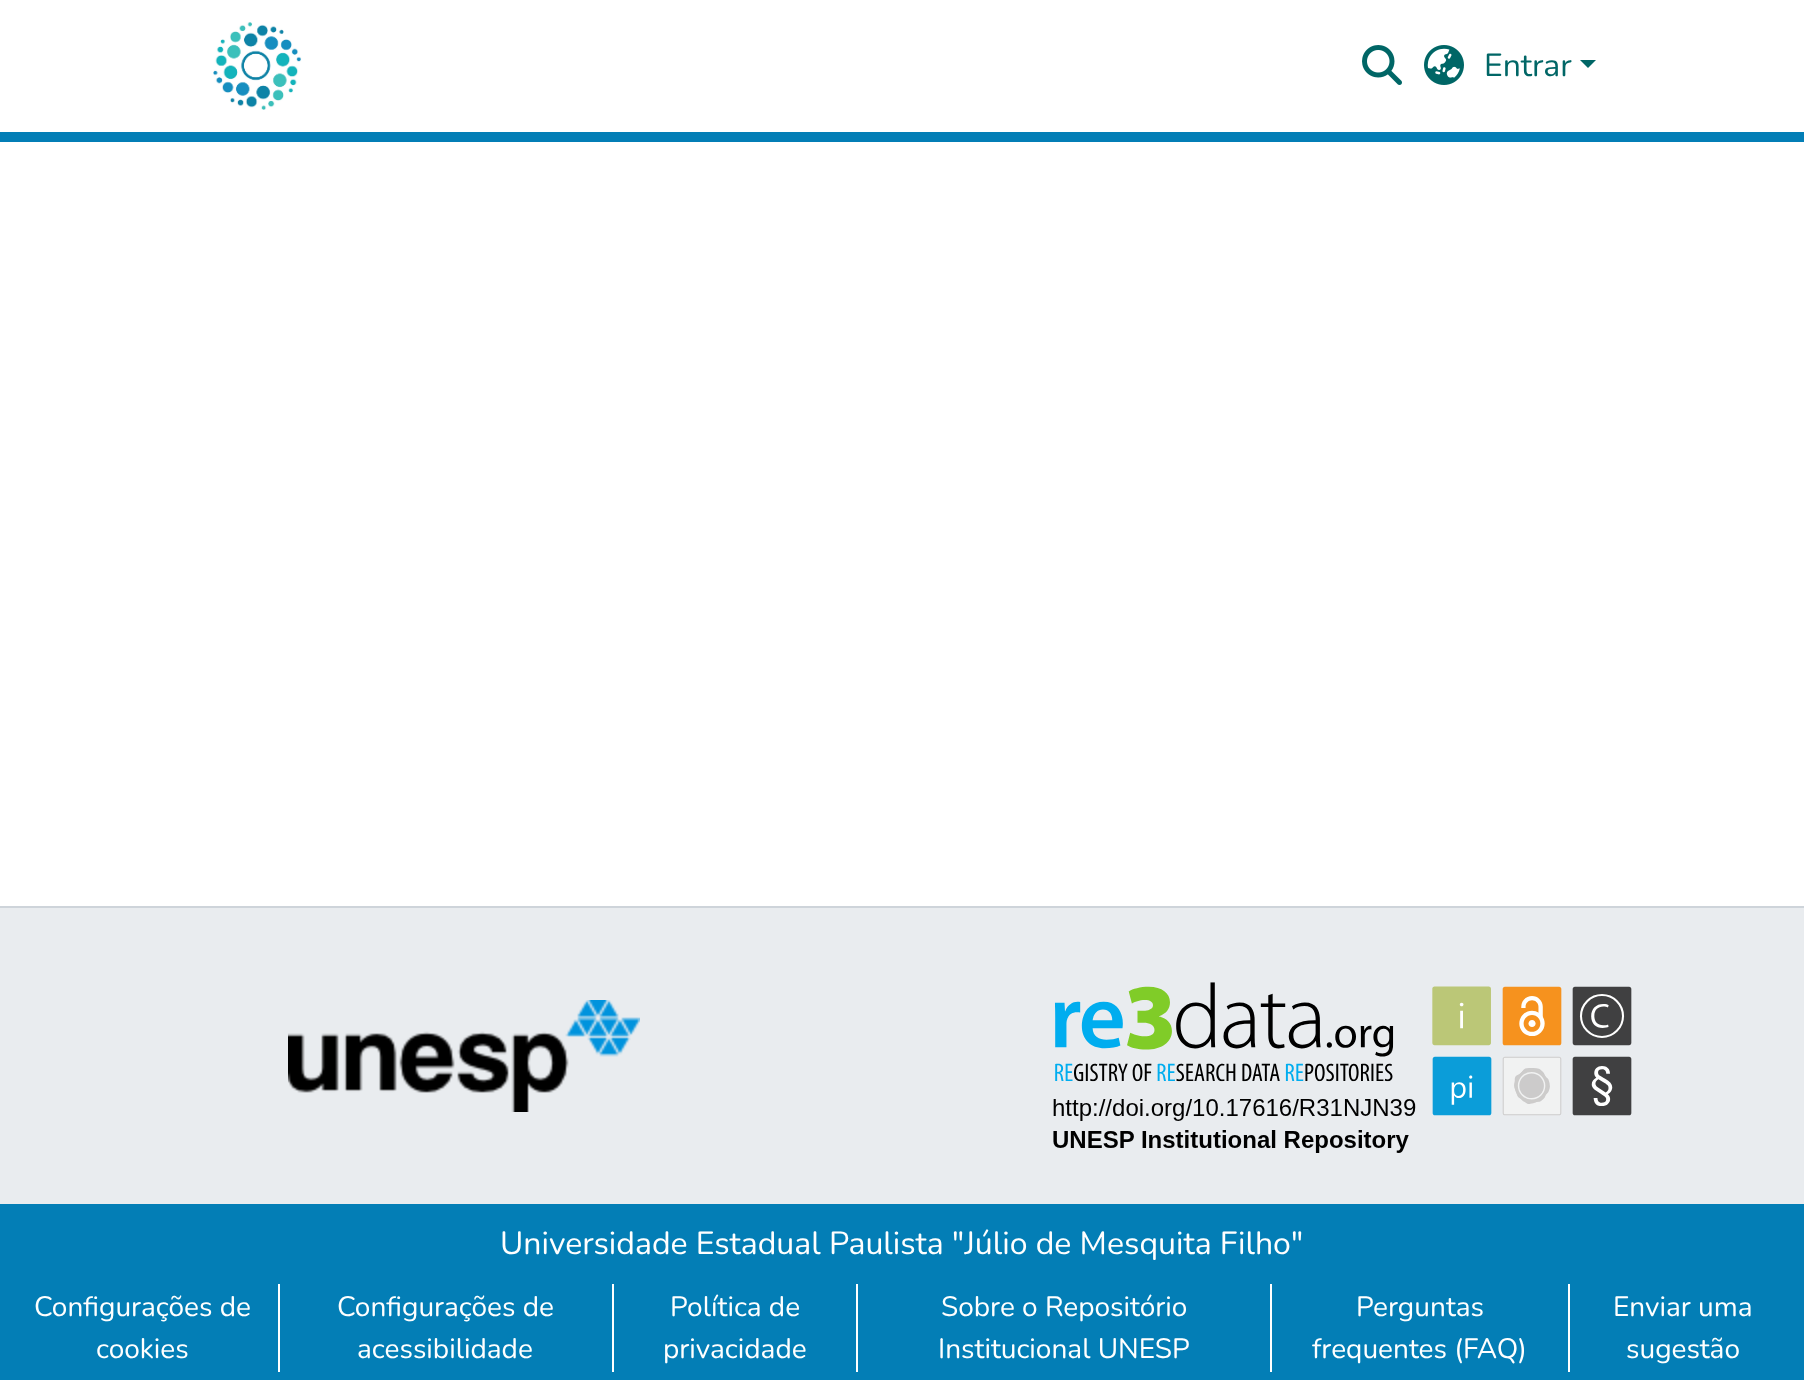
<!DOCTYPE html>
<meta charset="utf-8">
<style>body { margin: 0 } canvas { display: block }</style>
<canvas id="canvas" width="1804" height="1380"></canvas>
<script type="module">
  const canvas = document.getElementById("canvas");
  const g = canvas.getContext("2d");
  g.miterLimit = 4;
  g.fontKerning = "normal";
  function drawText(s, x, y, [font, color]) {
    g.font = font;
    g.fillStyle = color;
    g.fillText(s, x, y);
  }
  function fillBox(x, y, w, h, color) {
    g.fillStyle = color;
    g.fillRect(x, y, w, h);
  }
  async function drawPicture(src, x, y, w, h) {
    const img = new Image();
    img.src = src;
    await img.decode();
    g.drawImage(img, x, y, w, h);
  }

  const s1 = ["32px Nunito", "#006666"];
  const s2 = ["32px Nunito", "#FFFFFF"];
  const s3 = ["28px Nunito", "#FFFFFF"];

  fillBox(0, 0, 1804, 1380, "#FFFFFF");
  fillBox(0, 132, 1804, 10, "#037EB6");
  await drawPicture("pic1.png", 213, 22, 89, 88);
  await drawPicture("pic2.png", 1362, 45, 40, 40);
  await drawPicture("pic3.png", 1424, 45, 40, 40);
  drawText("Entrar", 1484, 76, s1);
  g.beginPath();
  g.moveTo(1580, 60);
  g.lineTo(1596, 60);
  g.lineTo(1588, 68);
  g.closePath();
  g.fill();
  fillBox(0, 1204, 1804, 176, "#037EB6");
  fillBox(0, 906, 1804, 2, "#CED4DA");
  fillBox(0, 908, 1804, 296, "#E9ECEF");
  await drawPicture("pic4.png", 288, 1000, 352, 112);
  await drawPicture("pic5.png", 1053, 982, 579, 171);
  drawText("Universidade Estadual Paulista \"Júlio de Mesquita Filho\"", 500, 1254, s2);
  drawText("Configurações de", 34, 1316, s3);
  drawText("cookies", 96, 1358, s3);
  fillBox(278, 1284, 2, 88, "#FFFFFF");
  drawText("Configurações de", 337, 1316, s3);
  drawText("acessibilidade", 357, 1358, s3);
  fillBox(612, 1284, 2, 88, "#FFFFFF");
  drawText("Política de", 670, 1316, s3);
  drawText("privacidade", 663, 1358, s3);
  fillBox(856, 1284, 2, 88, "#FFFFFF");
  drawText("Sobre o Repositório", 941, 1316, s3);
  drawText("Institucional UNESP", 938, 1358, s3);
  fillBox(1270, 1284, 2, 88, "#FFFFFF");
  drawText("Perguntas", 1356, 1316, s3);
  drawText("frequentes (FAQ)", 1312, 1358, s3);
  fillBox(1568, 1284, 2, 88, "#FFFFFF");
  drawText("Enviar uma", 1613, 1316, s3);
  drawText("sugestão", 1626, 1358, s3);
</script>
